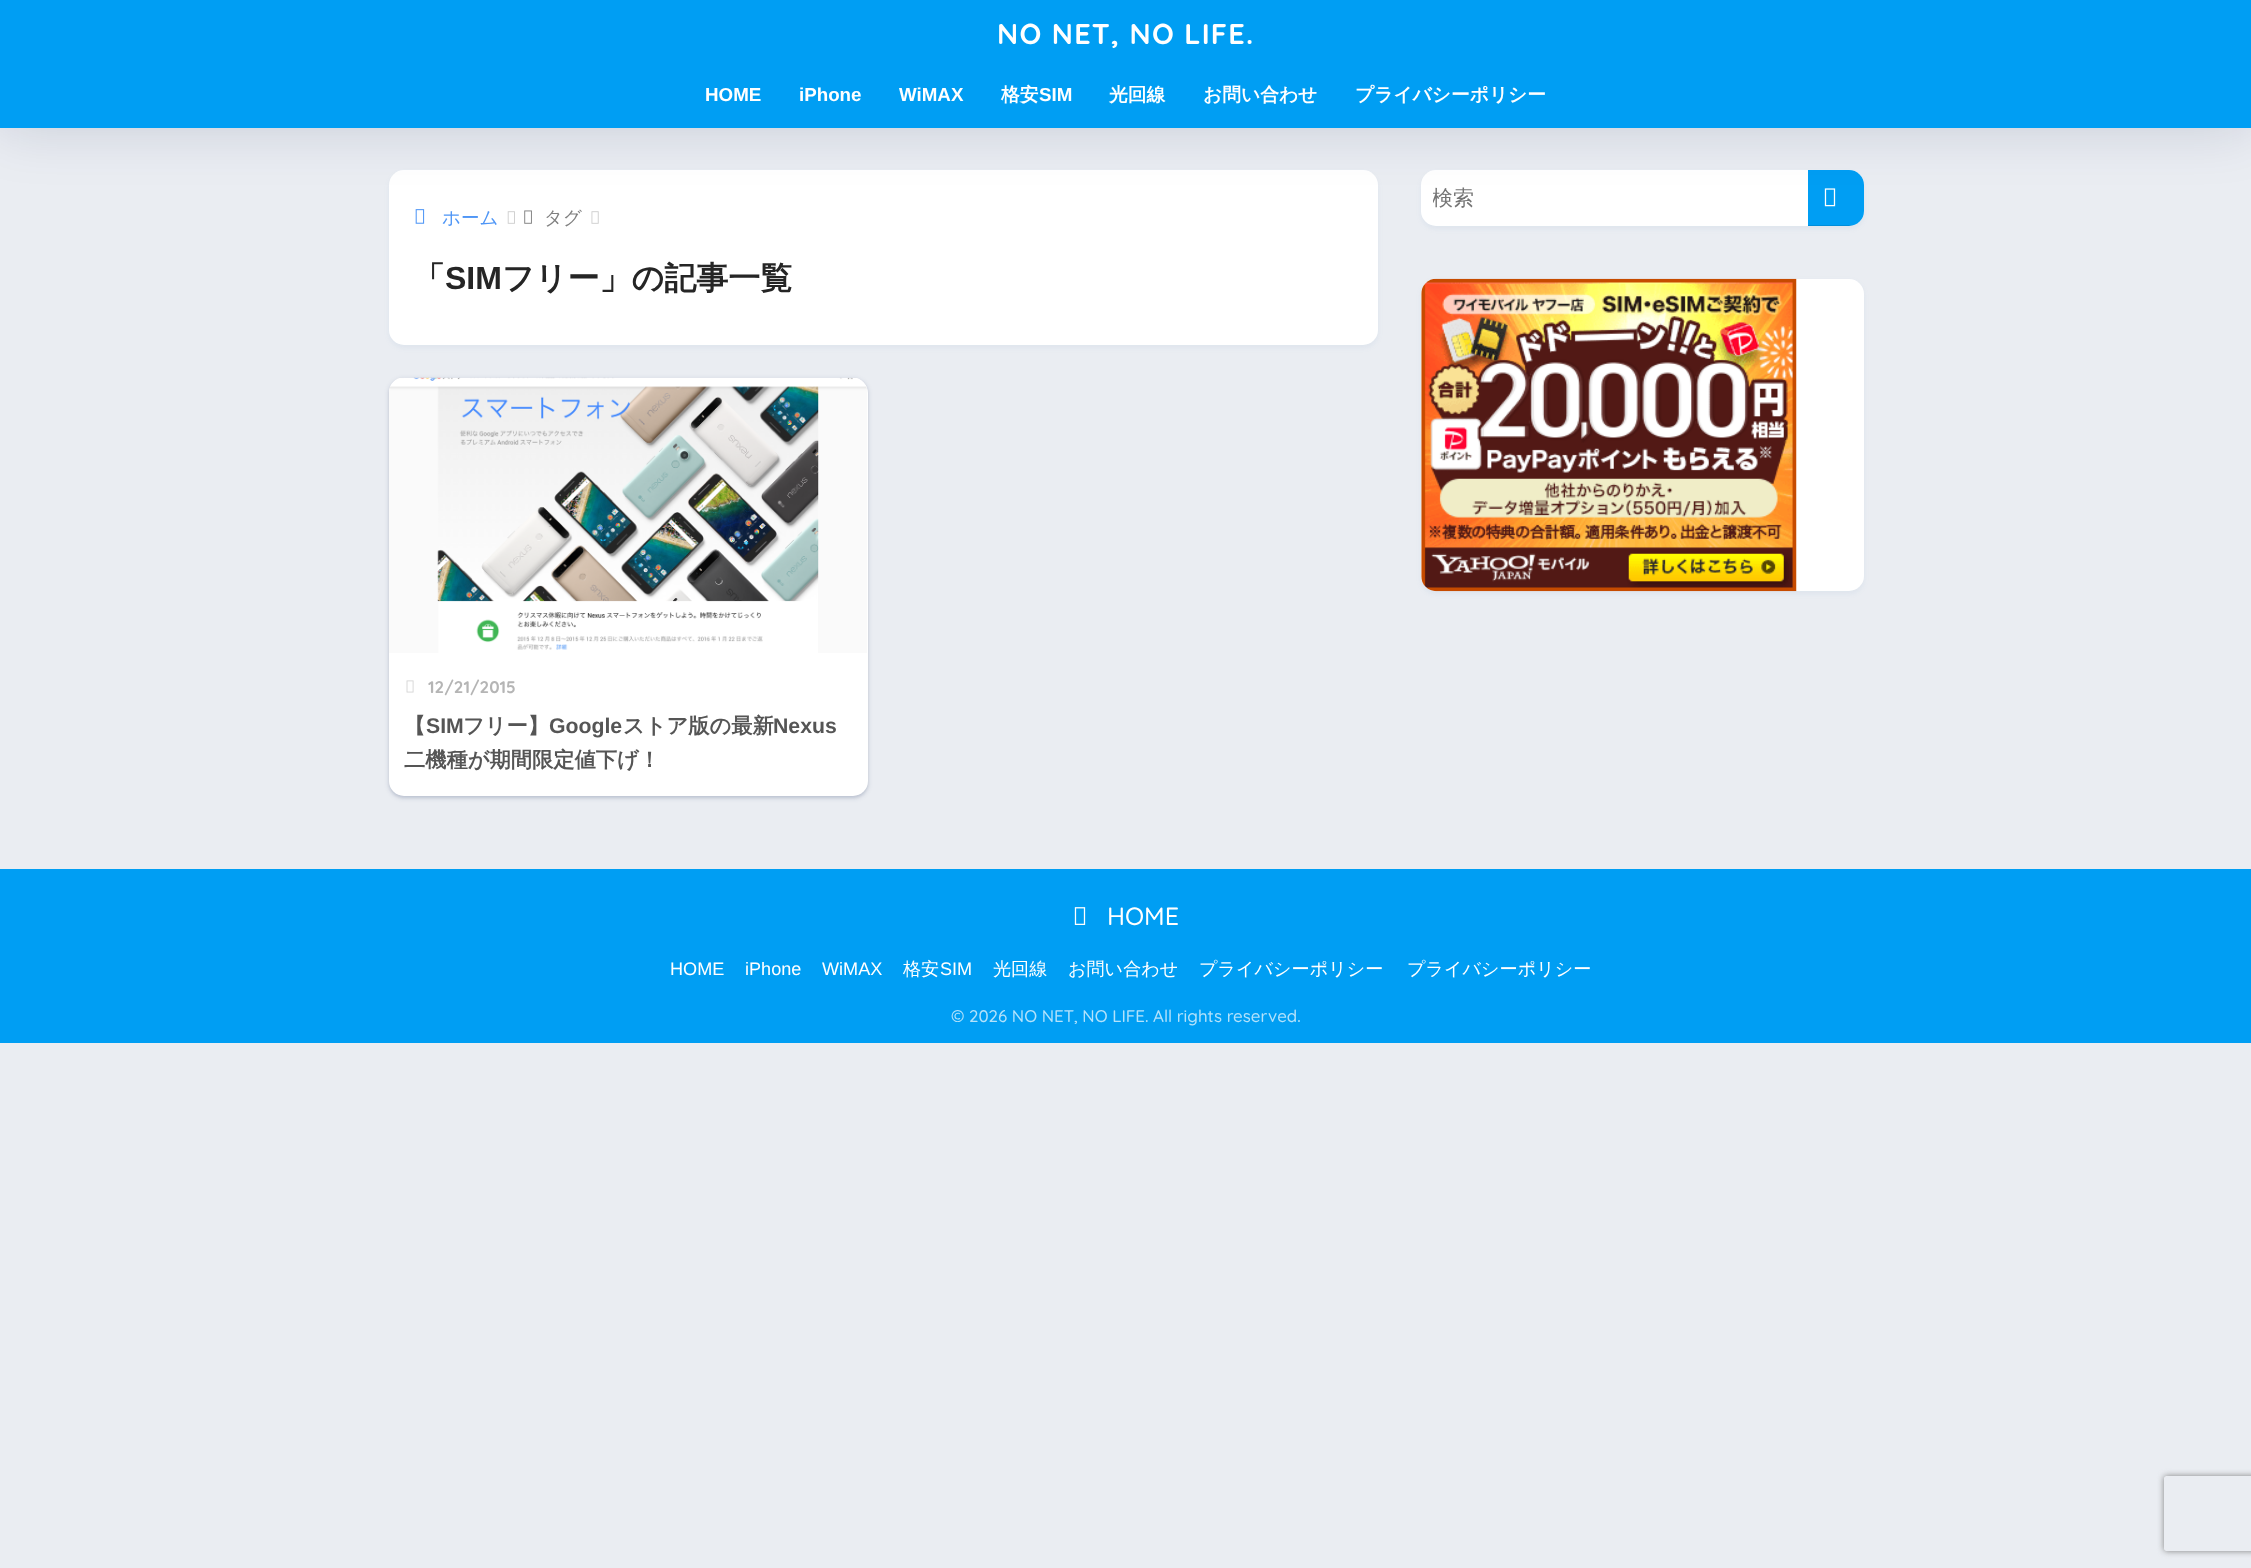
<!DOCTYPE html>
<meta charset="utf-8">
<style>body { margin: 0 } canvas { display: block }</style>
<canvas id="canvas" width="2251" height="1568"></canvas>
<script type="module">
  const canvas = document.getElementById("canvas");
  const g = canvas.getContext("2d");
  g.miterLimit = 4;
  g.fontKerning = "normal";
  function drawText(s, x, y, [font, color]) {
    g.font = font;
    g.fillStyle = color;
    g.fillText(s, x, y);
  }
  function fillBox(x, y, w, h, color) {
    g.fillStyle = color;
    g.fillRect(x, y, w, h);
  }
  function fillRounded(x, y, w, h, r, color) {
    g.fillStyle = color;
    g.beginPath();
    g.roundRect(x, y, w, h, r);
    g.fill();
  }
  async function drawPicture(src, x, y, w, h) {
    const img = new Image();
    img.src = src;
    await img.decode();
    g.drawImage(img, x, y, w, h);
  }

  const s1 = ["bold 28.75px Quicksand", "#FFFFFF"];
  const s2 = ["bold 18.75px Liberation Sans", "#FFFFFF"];
  const s3 = ["bold 18.75px WenQuanYi Zen Hei", "#FFFFFF"];
  const s4 = ["500 21px WenQuanYi Zen Hei", "#757575"];
  const s5 = ["500 18.5px WenQuanYi Zen Hei", "#4F96F6"];
  const s6 = ["500 18.5px WenQuanYi Zen Hei", "#808080"];
  const s7 = ["bold 32px WenQuanYi Zen Hei", "#252525"];
  const s8 = ["bold 32px Liberation Sans", "#252525"];
  const s9 = ["bold 16.9px Quicksand", "#B5B5B5"];
  const s10 = ["bold 21.25px WenQuanYi Zen Hei", "#555555"];
  const s11 = ["bold 21.25px Liberation Sans", "#555555"];
  const s12 = ["500 25px Quicksand", "#FFFFFF"];
  const s13 = ["18.1px Liberation Sans", "#FFFFFF"];
  const s14 = ["500 18.1px WenQuanYi Zen Hei", "#FFFFFF"];
  const s15 = ["500 16.9px Quicksand", "#B3E2FB"];

  fillBox(0, 0, 2251, 1568, "#EAEDF2");
  g.fillStyle = "rgba(67, 133, 187, 0.07)";
  g.filter = "blur(2.5px)";
  g.beginPath();
  g.roundRect(1421, 173, 443, 56, 15);
  g.fill();
  g.filter = "none";
  fillRounded(1421, 170, 443, 56, 15, "#FFFFFF");
  g.fillStyle = "#009EF3";
  g.beginPath();
  g.roundRect(1808, 170, 56, 56, [0, 15, 15, 0]);
  g.fill();
  await drawPicture("pic1.png", 1824, 188, 12, 19);
  g.fillStyle = "rgba(67, 133, 187, 0.07)";
  g.filter = "blur(2.5px)";
  g.beginPath();
  g.roundRect(389, 173, 989, 175, 15);
  g.fill();
  g.filter = "none";
  fillRounded(389, 170, 989, 175, 15, "#FFFFFF");
  await drawPicture("pic3.png", 415, 209, 10, 15);
  await drawPicture("pic4.png", 507, 211, 8, 13);
  await drawPicture("pic5.png", 524, 210, 8, 14);
  await drawPicture("pic6.png", 591, 211, 8, 13);
  g.fillStyle = "rgba(0, 12, 66, 0.15)";
  g.filter = "blur(28px)";
  g.beginPath();
  g.rect(0, 0, 2251, 128);
  g.fill();
  g.filter = "none";
  fillBox(0, 0, 2251, 128, "#009EF3");
  g.letterSpacing = "1.25px";
  drawText("NO NET, NO LIFE.", 997, 44, s1);
  g.letterSpacing = "0px";
  drawText("HOME", 705, 101, s2);
  drawText("iPhone", 799, 101, s2);
  drawText("WiMAX", 899, 101, s2);
  drawText("格安", 1001, 101, s3);
  drawText("SIM", 1039, 101, s2);
  drawText("光回線", 1109, 101, s3);
  drawText("お問い合わせ", 1203, 101, s3);
  drawText("プライバシーポリシー", 1355, 101, s3);
  g.save();
  g.beginPath();
  g.rect(1433, 184, 366, 29);
  g.clip();
  drawText("検索", 1432, 205, s4);
  g.restore();
  g.save();
  g.beginPath();
  g.roundRect(1421, 170, 443, 56, 15);
  g.clip();
  fillBox(1808, 225, 52, 1, "rgba(0, 0, 0, 0.1)");
  g.restore();
  g.fillStyle = "rgba(67, 133, 187, 0.07)";
  g.filter = "blur(2.5px)";
  g.beginPath();
  g.roundRect(1421, 281, 443, 313, 15);
  g.fill();
  g.filter = "none";
  fillRounded(1421, 279, 443, 312, 15, "#FFFFFF");
  await drawPicture("pic2.png", 1421, 278, 376, 314);
  drawText("ホーム", 442, 224, s5);
  drawText("タグ", 544, 224, s6);
  drawText("「", 413, 289, s7);
  drawText("SIM", 445, 289, s8);
  drawText("フリー」の記事一覧", 502, 289, s7);
  g.fillStyle = "rgba(24, 44, 84, 0.1)";
  g.filter = "blur(2px)";
  g.beginPath();
  g.roundRect(388, 378, 481, 421, 16);
  g.fill();
  g.filter = "none";
  g.filter = "blur(1px)";
  g.beginPath();
  g.roundRect(389, 379, 479, 419, 15);
  g.fill();
  g.filter = "none";
  fillRounded(389, 378, 479, 418, 15, "#FFFFFF");
  await drawPicture("pic7.png", 389, 377, 478, 276);
  await drawPicture("pic8.png", 406, 680, 8, 13);
  drawText("12/21/2015", 428, 693, s9);
  drawText("【", 404, 733, s10);
  drawText("SIM", 426, 733, s11);
  drawText("フリー】", 463, 733, s10);
  drawText("Google", 549, 733, s11);
  drawText("ストア版の最新", 623, 733, s10);
  drawText("Nexus", 773, 733, s11);
  drawText("二機種が期間限定値下げ！", 404, 767, s10);
  fillBox(0, 869, 2251, 174, "#009EF3");
  await drawPicture("pic9.png", 1074, 907, 12, 18);
  drawText("HOME", 1107, 925, s12);
  drawText("HOME", 670, 975, s13);
  drawText("iPhone", 745, 975, s13);
  drawText("WiMAX", 822, 975, s13);
  drawText("格安", 903, 975, s14);
  drawText("SIM", 940, 975, s13);
  drawText("光回線", 993, 975, s14);
  drawText("お問い合わせ", 1068, 975, s14);
  drawText("プライバシーポリシー", 1199, 975, s14);
  drawText("プライバシーポリシー", 1407, 975, s14);
  drawText("© 2026 NO NET, NO LIFE. All rights reserved.", 951, 1022, s15);
  g.save();
  g.beginPath();
  g.moveTo(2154, 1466);
  g.lineTo(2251, 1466);
  g.lineTo(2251, 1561);
  g.lineTo(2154, 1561);
  g.closePath();
  g.moveTo(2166.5, 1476);
  g.lineTo(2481.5, 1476);
  g.bezierCurveTo(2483, 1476, 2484, 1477, 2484, 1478.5);
  g.lineTo(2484, 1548.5);
  g.bezierCurveTo(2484, 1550, 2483, 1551, 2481.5, 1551);
  g.lineTo(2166.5, 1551);
  g.bezierCurveTo(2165, 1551, 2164, 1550, 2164, 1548.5);
  g.lineTo(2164, 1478.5);
  g.bezierCurveTo(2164, 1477, 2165, 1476, 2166.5, 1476);
  g.closePath();
  g.clip("evenodd");
  g.fillStyle = "#808080";
  g.filter = "blur(3px)";
  g.beginPath();
  g.roundRect(2164, 1476, 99, 75, 2.5);
  g.fill();
  g.filter = "none";
  g.restore();
</script>
